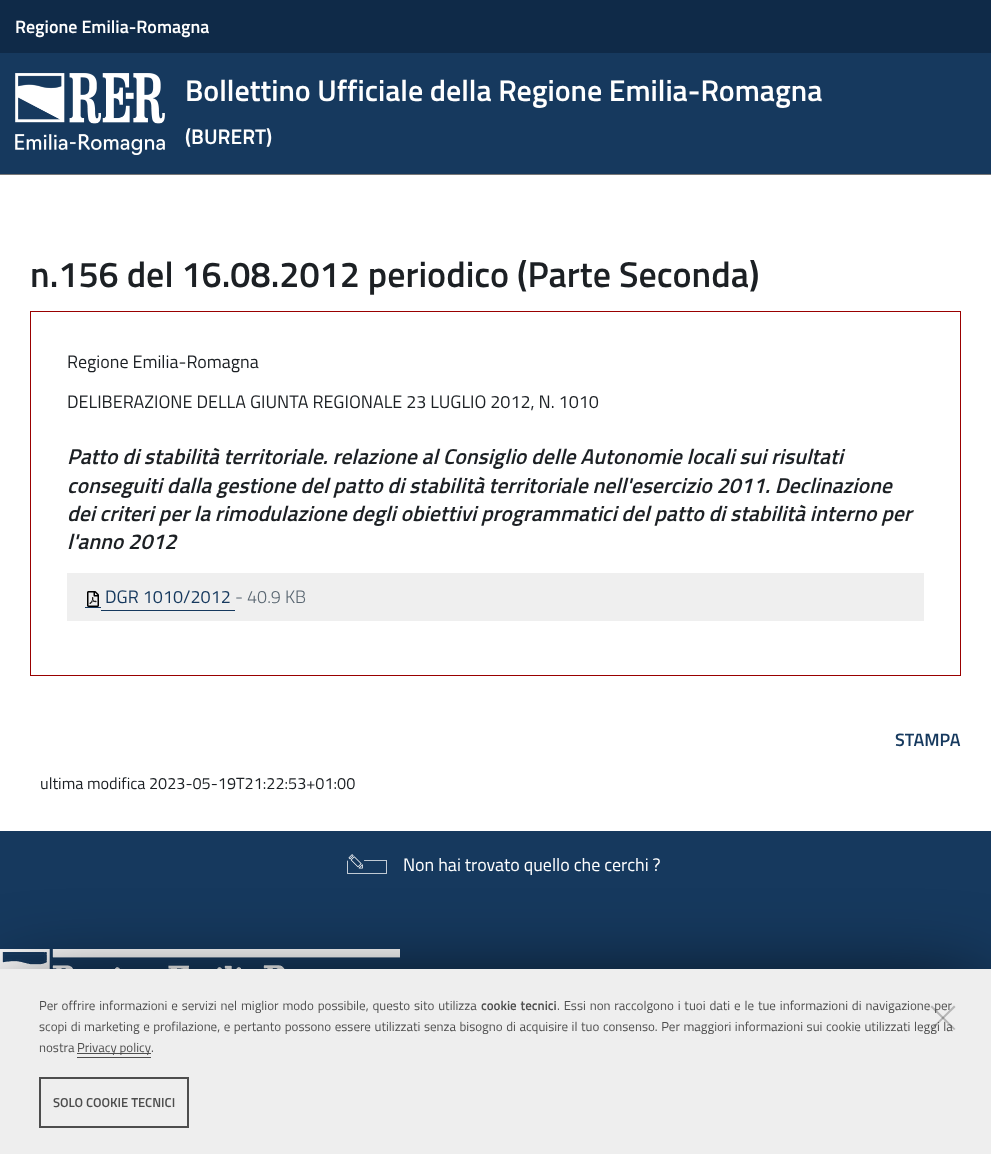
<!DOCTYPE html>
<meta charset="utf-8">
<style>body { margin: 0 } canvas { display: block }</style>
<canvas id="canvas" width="991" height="1154"></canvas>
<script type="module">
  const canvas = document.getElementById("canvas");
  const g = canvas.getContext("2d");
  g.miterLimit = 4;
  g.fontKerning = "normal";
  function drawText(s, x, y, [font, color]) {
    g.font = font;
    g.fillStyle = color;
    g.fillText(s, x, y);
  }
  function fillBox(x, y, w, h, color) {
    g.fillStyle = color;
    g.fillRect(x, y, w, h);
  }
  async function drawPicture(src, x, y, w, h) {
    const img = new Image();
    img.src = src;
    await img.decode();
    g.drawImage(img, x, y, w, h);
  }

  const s1 = ["600 18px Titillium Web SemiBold", "#FFFFFF"];
  const s2 = ["600 30px Titillium Web SemiBold", "#FFFFFF"];
  const s3 = ["600 21px Titillium Web SemiBold", "#FFFFFF"];
  const s4 = ["600 36px Titillium Web SemiBold", "#1C2024"];
  const s5 = ["18px Titillium Web", "#1C2024"];
  const s6 = ["italic 600 21.6px Titillium Web SemiBold", "#1C2024"];
  const s7 = ["18px Titillium Web", "#16395E"];
  const s8 = ["300 18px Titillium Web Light", "#5A6772"];
  const s9 = ["600 18px Titillium Web SemiBold", "#16395E"];
  const s10 = ["16.25px Titillium Web", "#1C2024"];
  const s11 = ["18px Titillium Web", "#FFFFFF"];
  const s12 = ["13px Titillium Web", "#4D4D4D"];
  const s13 = ["600 13px Titillium Web SemiBold", "#4D4D4D"];

  fillBox(0, 0, 991, 1154, "#FFFFFF");
  fillBox(0, 53, 991, 121, "#16395E");
  fillBox(0, 0, 991, 53, "#0F2A48");
  drawText("Regione Emilia-Romagna", 15, 33, s1);
  fillBox(0, 174, 991, 1, "#777777");
  await drawPicture("pic1.png", 15, 73, 150, 82);
  drawText("Bollettino Ufficiale della Regione Emilia-Romagna", 185, 101, s2);
  drawText("(BURERT)", 185, 144, s3);
  drawText("n.156 del 16.08.2012 periodico (Parte Seconda)", 30, 287, s4);
  g.strokeStyle = "#990000";
  g.strokeRect(30.5, 311.5, 930, 364);
  drawText("Regione Emilia-Romagna", 67, 368, s5);
  drawText("DELIBERAZIONE DELLA GIUNTA REGIONALE 23 LUGLIO 2012, N. 1010", 67, 408, s5);
  drawText("Patto di stabilità territoriale. relazione al Consiglio delle Autonomie locali sui risultati", 67, 464, s6);
  drawText("conseguiti dalla gestione del patto di stabilità territoriale nell'esercizio 2011. Declinazione", 67, 493, s6);
  drawText("dei criteri per la rimodulazione degli obiettivi programmatici del patto di stabilità interno per", 67, 521, s6);
  drawText("l'anno 2012", 67, 549, s6);
  fillBox(67, 573, 857, 48, "#EFEFEF");
  await drawPicture("pic2.png", 87, 591, 12, 16);
  drawText("DGR 1010/2012", 105, 603, s7);
  fillBox(85, 607, 16, 1, "#16395E");
  fillBox(101, 610, 134, 1, "#16395E");
  drawText("- 40.9 KB", 235, 603, s8);
  drawText("STAMPA", 895, 746, s9);
  drawText("ultima modifica 2023-05-19T21:22:53+01:00", 40, 789, s10);
  fillBox(0, 831, 991, 138, "#16395E");
  await drawPicture("pic3.png", 347, 854, 40, 20);
  drawText("Non hai trovato quello che cerchi ?", 403, 871, s11);
  await drawPicture("pic4.png", 0, 949, 400, 20);
  g.fillStyle = "#000000";
  g.filter = "blur(45px)";
  g.beginPath();
  g.rect(9, 996, 973, 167);
  g.fill();
  g.filter = "none";
  fillBox(0, 969, 991, 185, "#EEEEEE");
  g.wordSpacing = "1px";
  drawText("Per offrire informazioni e servizi nel miglior modo possibile, questo sito utilizza", 39, 1010, s12);
  drawText("cookie tecnici", 481, 1010, s13);
  drawText(". Essi non raccolgono i tuoi dati e le tue informazioni di navigazione per", 557, 1010, s12);
  g.wordSpacing = "0.7px";
  drawText("scopi di marketing e profilazione, e pertanto possono essere utilizzati senza bisogno di acquisire il tuo consenso. Per maggiori informazioni sui cookie utilizzati leggi la", 39, 1031, s12);
  g.wordSpacing = "0px";
  drawText("nostra", 39, 1052, s12);
  fillBox(77, 1053, 74, 1, "#4D4D4D");
  drawText("Privacy policy", 77, 1052, s12);
  fillBox(77, 1057, 74, 1, "#4D4D4D");
  drawText(".", 151, 1052, s12);
  g.fillStyle = "rgba(51, 51, 51, 0.3)";
  g.beginPath();
  g.moveTo(954, 1005.5);
  g.lineTo(955.5, 1007);
  g.lineTo(932, 1030);
  g.lineTo(930.5, 1029);
  g.closePath();
  g.fill();
  g.beginPath();
  g.moveTo(930.5, 1007);
  g.lineTo(932, 1005.5);
  g.lineTo(955.5, 1029);
  g.lineTo(954, 1030);
  g.closePath();
  g.fill();
  g.strokeStyle = "#4D4D4D";
  g.lineWidth = 2;
  g.strokeRect(40, 1078, 148, 49);
  drawText("SOLO COOKIE TECNICI", 53, 1107, s13);
</script>
